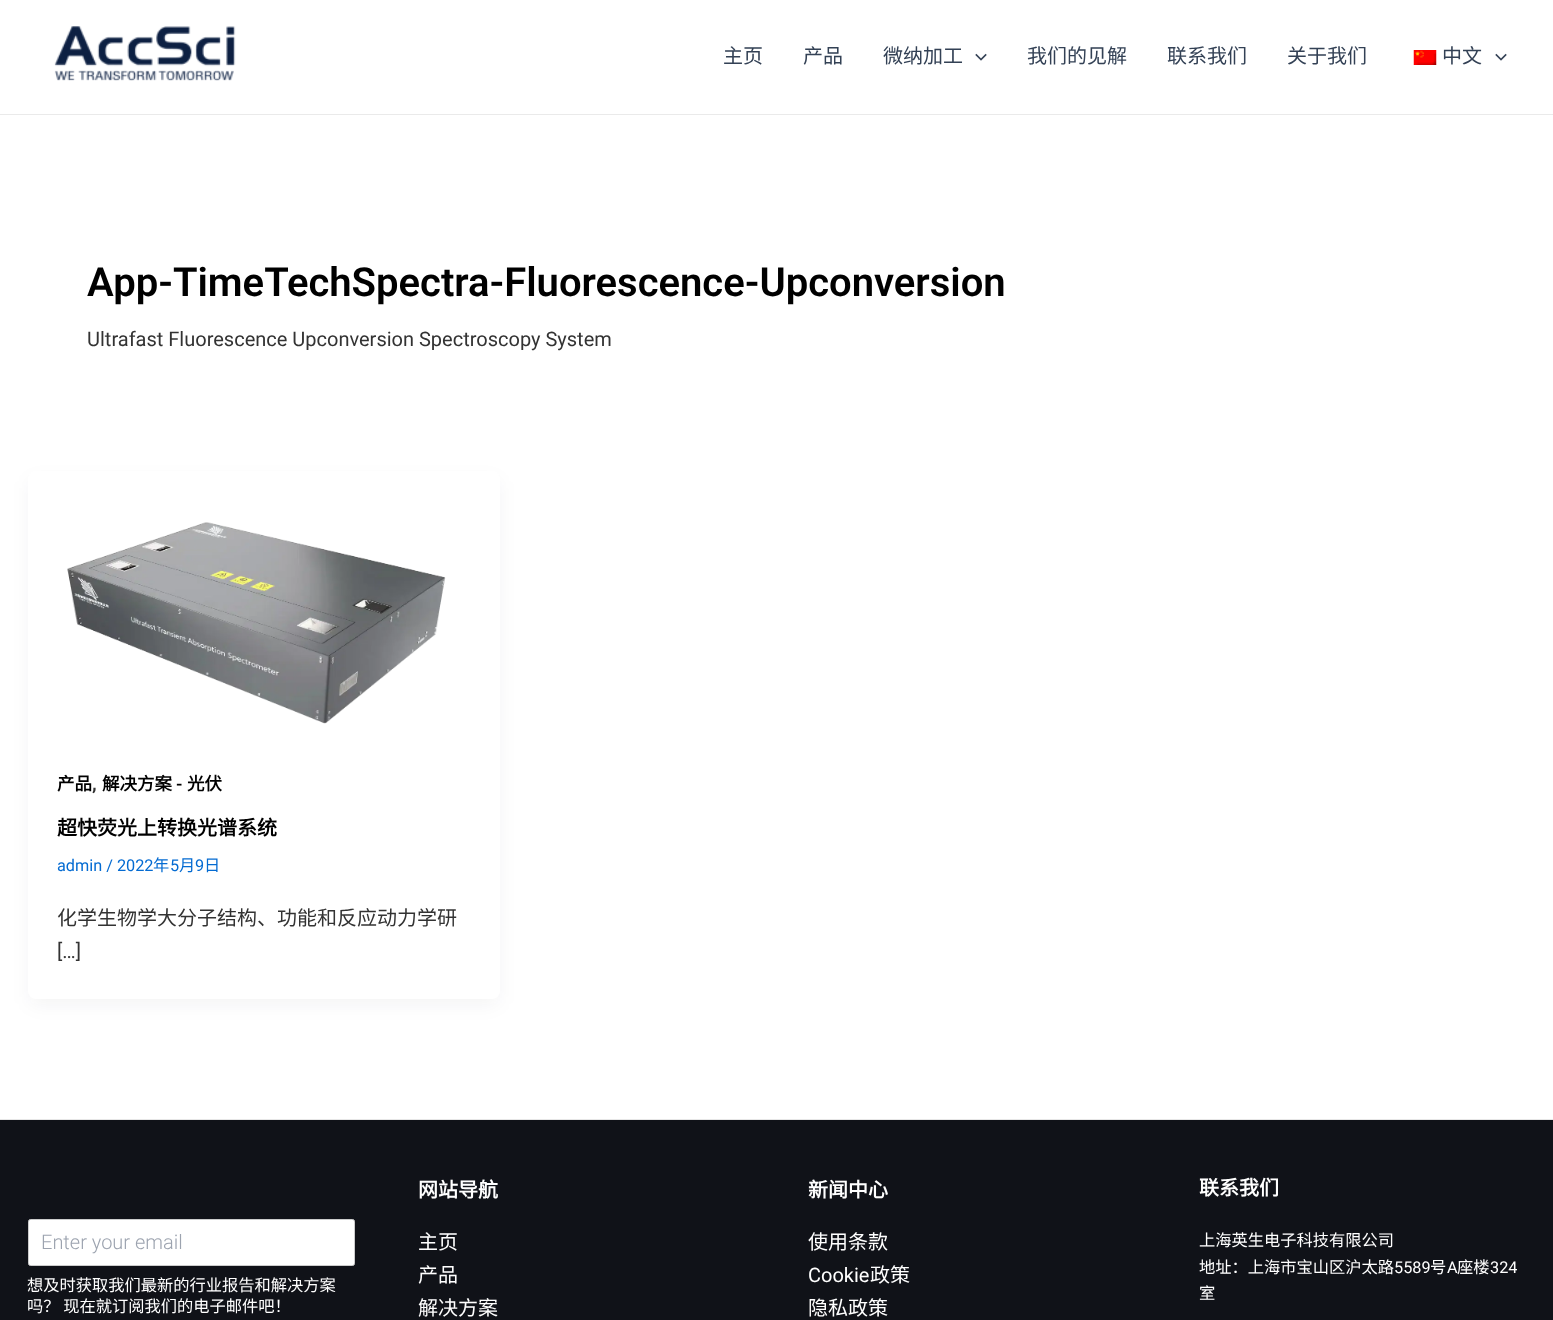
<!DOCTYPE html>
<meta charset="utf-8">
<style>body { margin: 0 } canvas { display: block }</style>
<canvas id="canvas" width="1553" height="1320"></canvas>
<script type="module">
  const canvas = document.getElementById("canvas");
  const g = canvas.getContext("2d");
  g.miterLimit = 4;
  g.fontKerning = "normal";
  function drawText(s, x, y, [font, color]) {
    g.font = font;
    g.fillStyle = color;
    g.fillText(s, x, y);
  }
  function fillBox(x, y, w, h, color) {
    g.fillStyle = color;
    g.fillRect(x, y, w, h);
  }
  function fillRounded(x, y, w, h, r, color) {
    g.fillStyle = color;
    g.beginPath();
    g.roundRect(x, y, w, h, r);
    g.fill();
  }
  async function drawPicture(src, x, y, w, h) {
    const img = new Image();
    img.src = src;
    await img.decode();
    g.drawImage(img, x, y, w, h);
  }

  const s1 = ["20px Noto Sans CJK SC", "#334155"];
  const s2 = ["600 40px Roboto", "#000000"];
  const s3 = ["20px Roboto", "#333333"];
  const s4 = ["bold 17.5px Noto Sans CJK SC", "#000000"];
  const s5 = ["600 17.5px Roboto", "#000000"];
  const s6 = ["600 20px Roboto", "#333333"];
  const s7 = ["bold 20px Noto Sans CJK SC", "#000000"];
  const s8 = ["16.25px Roboto", "#046BD2"];
  const s9 = ["16.25px Noto Sans CJK SC", "#046BD2"];
  const s10 = ["20px Noto Sans CJK SC", "#333333"];
  const s11 = ["300 20px Roboto", "#9CA3AF"];
  const s12 = ["16.25px Noto Sans CJK SC", "#FFFFFF"];
  const s13 = ["bold 20px Noto Sans CJK SC", "#FFFFFF"];
  const s14 = ["20px Noto Sans CJK SC", "#FFFFFF"];
  const s15 = ["20px Roboto", "#FFFFFF"];
  const s16 = ["16.25px Roboto", "#FFFFFF"];

  fillBox(0, 0, 1553, 1320, "#FFFFFF");
  fillBox(0, 114, 1553, 1, "#EAEAEA");
  await drawPicture("pic1.png", 54, 26, 182, 55);
  drawText("主页", 723, 63, s1);
  drawText("产品", 803, 63, s1);
  drawText("微纳加工", 883, 63, s1);
  await drawPicture("pic2.png", 975, 53, 12, 8);
  drawText("我们的见解", 1027, 63, s1);
  drawText("联系我们", 1167, 63, s1);
  drawText("关于我们", 1287, 63, s1);
  await drawPicture("pic3.png", 1413, 50, 24, 15);
  drawText("中文", 1442, 63, s1);
  await drawPicture("pic2.png", 1495, 53, 12, 8);
  drawText("App-TimeTechSpectra-Fluorescence-Upconversion", 87, 296, s2);
  drawText("Ultrafast Fluorescence Upconversion Spectroscopy System", 87, 346, s3);
  g.fillStyle = "rgba(16, 24, 40, 0.05)";
  g.filter = "blur(9.5px)";
  g.beginPath();
  g.roundRect(30, 481, 468, 523, 5);
  g.fill();
  g.filter = "none";
  fillRounded(28, 471, 472, 528, 8, "#FFFFFF");
  await drawPicture("pic4.png", 67, 522, 379, 202);
  drawText("产品", 57, 790, s4);
  drawText("解决方案", 102, 790, s4);
  drawText("-", 176, 790, s5);
  drawText("光伏", 187, 790, s4);
  drawText(",", 92, 790, s6);
  drawText("超快荧光上转换光谱系统", 57, 835, s7);
  drawText("admin / 2022", 57, 871, s8);
  drawText("年", 153, 871, s9);
  drawText("5", 170, 871, s8);
  drawText("月", 179, 871, s9);
  drawText("9", 195, 871, s8);
  drawText("日", 204, 871, s9);
  drawText("化学生物学大分子结构、功能和反应动力学研", 57, 925, s10);
  drawText("[…]", 57, 958, s3);
  fillBox(0, 1120, 1553, 200, "#101218");
  fillBox(0, 1119, 1553, 1, "#E6E6E6");
  g.fillStyle = "#FFFFFF";
  g.beginPath();
  g.roundRect(28.5, 1219.5, 326, 46, 2);
  g.fill();
  g.strokeStyle = "#CCCCCC";
  g.stroke();
  drawText("Enter your email", 41, 1249, s11);
  drawText("想及时获取我们最新的行业报告和解决方案", 27, 1291, s12);
  drawText("吗？ 现在就订阅我们的电子邮件吧！", 27, 1312, s12);
  drawText("网站导航", 418, 1197, s13);
  drawText("主页", 418, 1249, s14);
  drawText("产品", 418, 1282, s14);
  drawText("解决方案", 418, 1315, s14);
  drawText("新闻中心", 808, 1197, s13);
  drawText("使用条款", 808, 1249, s14);
  drawText("Cookie", 808, 1282, s15);
  drawText("政策", 870, 1282, s14);
  drawText("隐私政策", 808, 1315, s14);
  drawText("联系我们", 1199, 1195, s13);
  drawText("上海英生电子科技有限公司", 1199, 1246, s12);
  drawText("地址：上海市宝山区沪太路", 1199, 1273, s12);
  drawText("5589", 1394, 1273, s16);
  drawText("号", 1430, 1273, s12);
  drawText("A", 1447, 1273, s16);
  drawText("座楼", 1457, 1273, s12);
  drawText("324", 1490, 1273, s16);
  drawText("室", 1199, 1299, s12);
</script>
